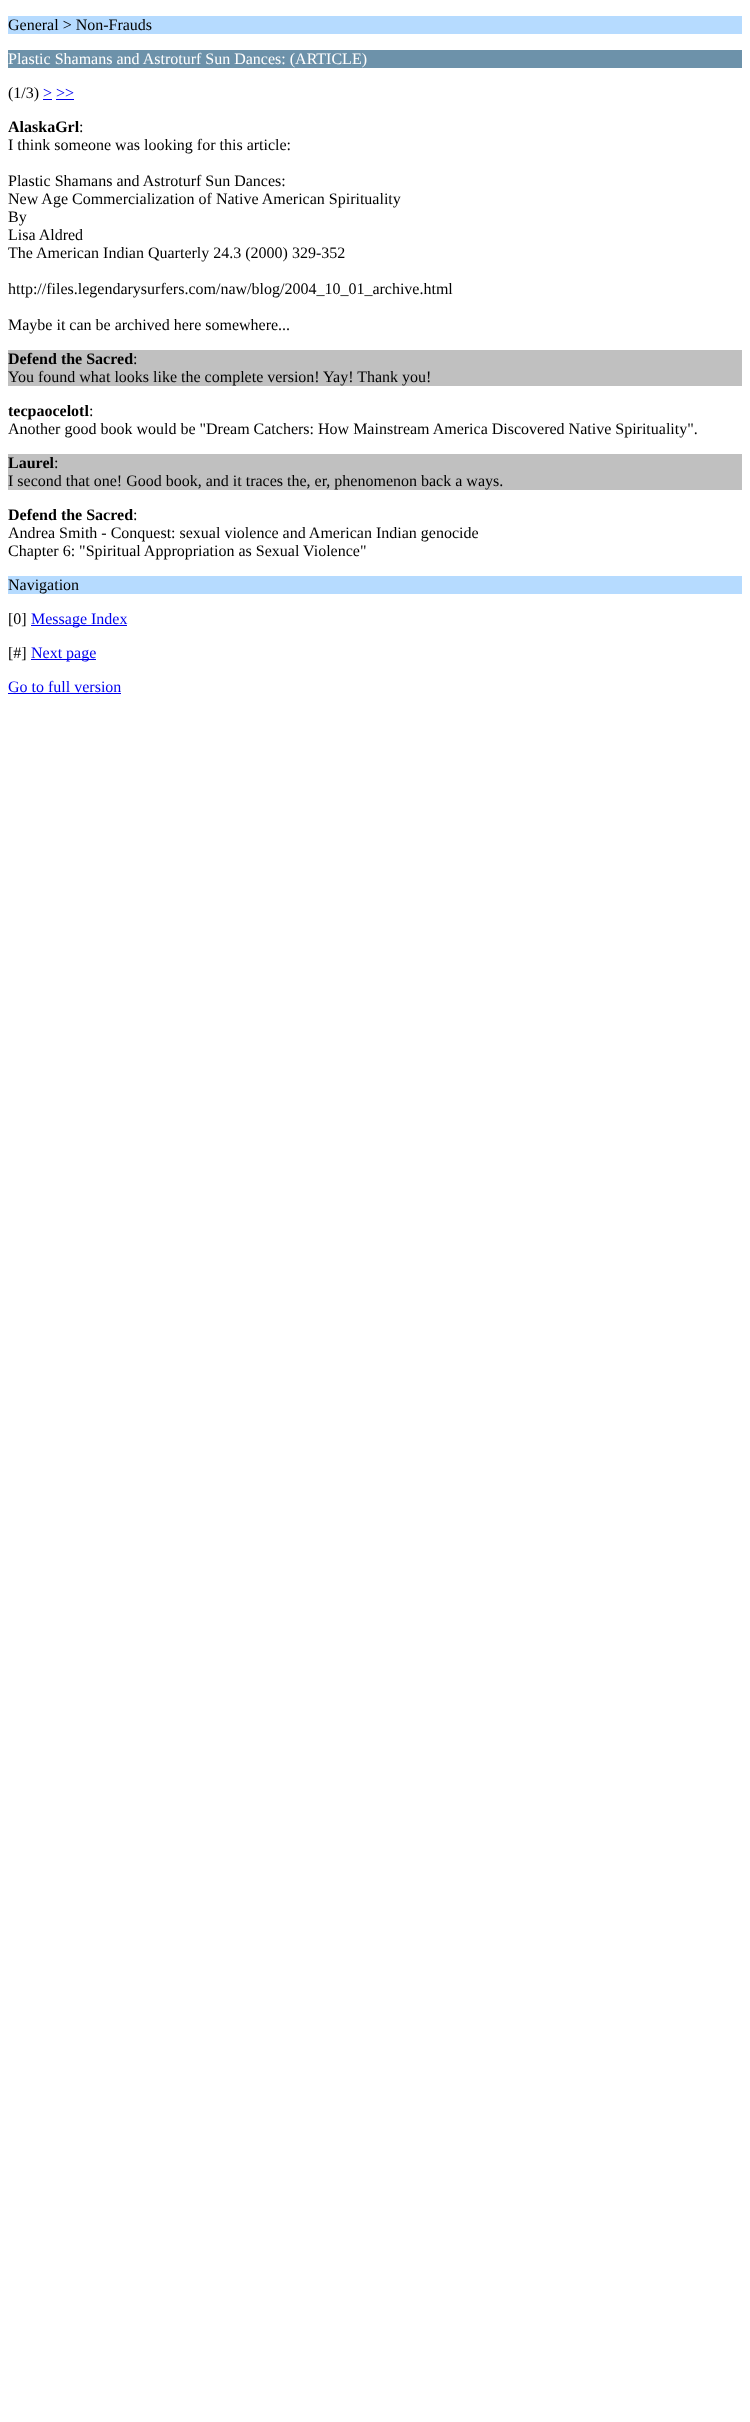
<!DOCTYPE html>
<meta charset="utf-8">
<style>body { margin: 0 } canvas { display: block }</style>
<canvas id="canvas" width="750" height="2422"></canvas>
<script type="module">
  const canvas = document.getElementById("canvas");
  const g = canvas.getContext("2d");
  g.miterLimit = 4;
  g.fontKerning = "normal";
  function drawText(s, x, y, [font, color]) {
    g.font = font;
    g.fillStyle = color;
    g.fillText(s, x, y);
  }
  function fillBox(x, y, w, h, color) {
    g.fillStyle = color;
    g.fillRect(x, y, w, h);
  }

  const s1 = ["16px Liberation Serif", "#000000"];
  const s2 = ["16px Liberation Serif", "#FFFFFF"];
  const s3 = ["16px Liberation Serif", "#0000EE"];
  const s4 = ["bold 16px Liberation Serif", "#000000"];

  fillBox(0, 0, 750, 2422, "#FFFFFF");
  fillBox(8, 16, 734, 18, "#B6DBFF");
  drawText("General > Non-Frauds", 8, 30, s1);
  fillBox(8, 50, 734, 18, "#6D92AA");
  drawText("Plastic Shamans and Astroturf Sun Dances: (ARTICLE)", 8, 64, s2);
  drawText("(1/3)", 8, 98, s1);
  drawText("> >>", 43, 98, s3);
  fillBox(43, 99, 9, 1, "#0000EE");
  fillBox(56, 99, 18, 1, "#0000EE");
  drawText("AlaskaGrl", 8, 132, s4);
  drawText(":", 79, 132, s1);
  drawText("I think someone was looking for this article:", 8, 150, s1);
  drawText("Plastic Shamans and Astroturf Sun Dances:", 8, 186, s1);
  drawText("New Age Commercialization of Native American Spirituality", 8, 204, s1);
  drawText("By", 8, 222, s1);
  drawText("Lisa Aldred", 8, 240, s1);
  drawText("The American Indian Quarterly 24.3 (2000) 329-352", 8, 258, s1);
  drawText("http://files.legendarysurfers.com/naw/blog/2004_10_01_archive.html", 8, 294, s1);
  drawText("Maybe it can be archived here somewhere...", 8, 330, s1);
  fillBox(8, 350, 734, 36, "#C0C0C0");
  drawText("Defend the Sacred", 8, 364, s4);
  drawText(":", 133, 364, s1);
  drawText("You found what looks like the complete version! Yay! Thank you!", 8, 382, s1);
  drawText("tecpaocelotl", 8, 416, s4);
  drawText(":", 89, 416, s1);
  drawText("Another good book would be \"Dream Catchers: How Mainstream America Discovered Native Spirituality\".", 8, 434, s1);
  fillBox(8, 454, 734, 36, "#C0C0C0");
  drawText("Laurel", 8, 468, s4);
  drawText(":", 54, 468, s1);
  drawText("I second that one! Good book, and it traces the, er, phenomenon back a ways.", 8, 486, s1);
  drawText("Defend the Sacred", 8, 520, s4);
  drawText(":", 133, 520, s1);
  drawText("Andrea Smith - Conquest: sexual violence and American Indian genocide", 8, 538, s1);
  drawText("Chapter 6: \"Spiritual Appropriation as Sexual Violence\"", 8, 556, s1);
  fillBox(8, 576, 734, 18, "#B6DBFF");
  drawText("Navigation", 8, 590, s1);
  drawText("[0]", 8, 624, s1);
  fillBox(31, 625, 96, 1, "#0000EE");
  drawText("Message Index", 31, 624, s3);
  drawText("[#]", 8, 658, s1);
  fillBox(31, 659, 65, 1, "#0000EE");
  drawText("Next page", 31, 658, s3);
  drawText("Go to full version", 8, 692, s3);
  fillBox(8, 693, 113, 1, "#0000EE");
</script>
